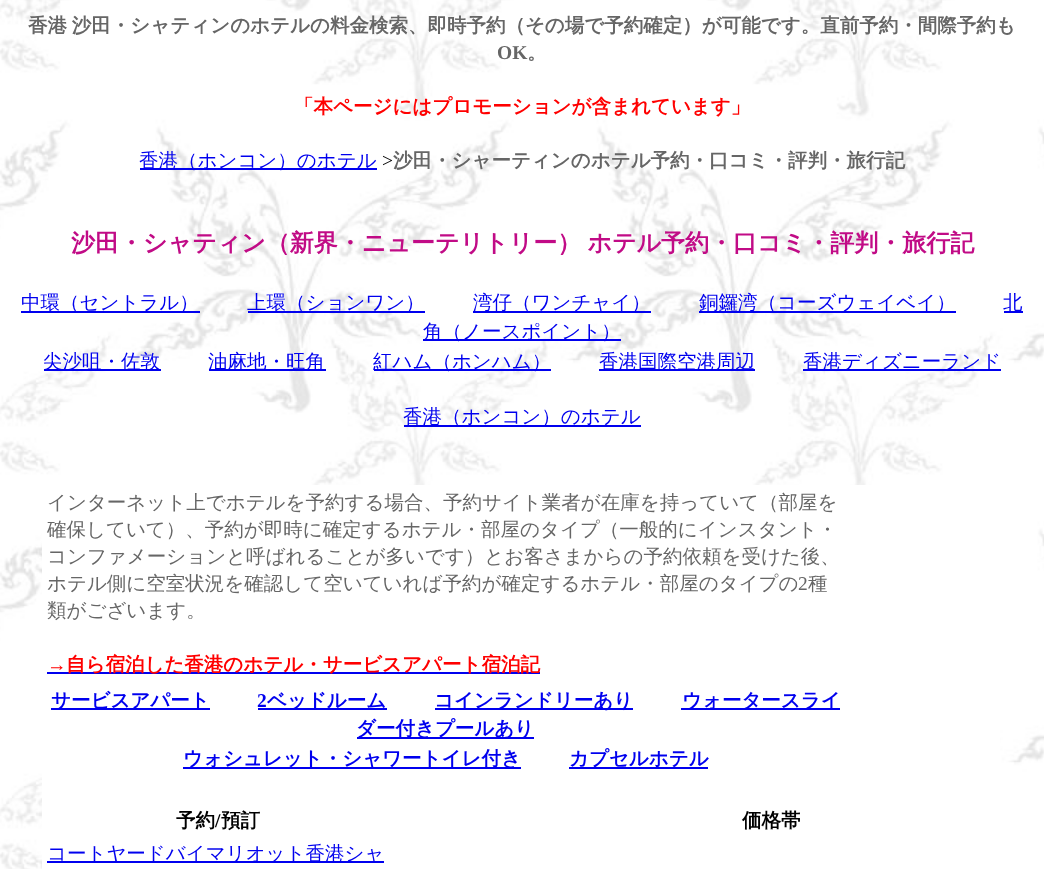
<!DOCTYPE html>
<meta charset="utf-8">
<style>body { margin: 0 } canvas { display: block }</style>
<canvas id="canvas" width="1044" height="869"></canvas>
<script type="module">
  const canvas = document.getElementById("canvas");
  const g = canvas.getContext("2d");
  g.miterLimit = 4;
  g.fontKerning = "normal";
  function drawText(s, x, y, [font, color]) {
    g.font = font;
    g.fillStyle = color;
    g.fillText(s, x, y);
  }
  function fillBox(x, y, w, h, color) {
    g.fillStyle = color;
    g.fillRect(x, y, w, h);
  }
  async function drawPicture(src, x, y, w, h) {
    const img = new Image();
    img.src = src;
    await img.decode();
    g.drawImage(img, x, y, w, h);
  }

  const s1 = ["bold 19.5px WenQuanYi Zen Hei", "#666666"];
  const s2 = ["bold 19.5px Liberation Serif", "#666666"];
  const s3 = ["bold 19.5px WenQuanYi Zen Hei", "#FF0000"];
  const s4 = ["500 19.5px WenQuanYi Zen Hei", "#0000EE"];
  const s5 = ["19.5px Liberation Serif", "#000000"];
  const s6 = ["bold 24px WenQuanYi Zen Hei", "#C10B86"];
  const s7 = ["500 19.5px WenQuanYi Zen Hei", "#666666"];
  const s8 = ["19.5px Liberation Serif", "#666666"];
  const s9 = ["bold 19.5px Liberation Serif", "#FF0000"];
  const s10 = ["bold 19.5px WenQuanYi Zen Hei", "#0000EE"];
  const s11 = ["bold 19.5px Liberation Serif", "#0000EE"];
  const s12 = ["bold 19.5px WenQuanYi Zen Hei", "#000000"];
  const s13 = ["bold 19.5px Liberation Serif", "#000000"];

  fillBox(0, 0, 1044, 869, "#FFFFFF");
  await drawPicture("pic1.png", 0, 0, 1044, 869);
  g.wordSpacing = "-1px";
  drawText("香港 沙田・シャティンのホテルの料金検索、即時予約（その場で予約確定）が可能です。直前予約・間際予約も", 28, 32, s1);
  g.wordSpacing = "0px";
  drawText("OK", 497, 59, s2);
  drawText("。", 527, 59, s1);
  drawText("「本ページにはプロモーションが含まれています」", 294, 113, s3);
  fillBox(140, 168, 237, 2, "#0000EE");
  drawText("香港（ホンコン）のホテル", 139, 167, s4);
  drawText(">", 382, 167, s5);
  drawText("沙田・シャーティンのホテル予約・口コミ・評判・旅行記", 393, 167, s1);
  g.wordSpacing = "-1px";
  drawText("沙田・シャティン（新界・ニューテリトリー） ホテル予約・口コミ・評判・旅行記", 71, 251, s6);
  fillBox(21, 311, 179, 2, "#0000EE");
  g.wordSpacing = "0px";
  drawText("中環（セントラル）", 21, 309, s4);
  fillBox(248, 311, 177, 2, "#0000EE");
  drawText("上環（ションワン）", 247, 309, s4);
  fillBox(473, 311, 178, 2, "#0000EE");
  drawText("湾仔（ワンチャイ）", 473, 309, s4);
  fillBox(699, 311, 257, 2, "#0000EE");
  drawText("銅鑼湾（コーズウェイベイ）", 699, 309, s4);
  fillBox(1004, 311, 19, 2, "#0000EE");
  drawText("北", 1003, 309, s4);
  fillBox(423, 339, 198, 2, "#0000EE");
  drawText("角（ノースポイント）", 423, 338, s4);
  fillBox(44, 369, 117, 2, "#0000EE");
  drawText("尖沙咀・佐敦", 43, 368, s4);
  fillBox(209, 369, 117, 2, "#0000EE");
  drawText("油麻地・旺角", 208, 368, s4);
  fillBox(374, 369, 177, 2, "#0000EE");
  drawText("紅ハム（ホンハム）", 373, 368, s4);
  fillBox(599, 369, 156, 2, "#0000EE");
  drawText("香港国際空港周辺", 599, 368, s4);
  fillBox(803, 369, 198, 2, "#0000EE");
  drawText("香港ディズニーランド", 803, 368, s4);
  fillBox(404, 425, 237, 2, "#0000EE");
  drawText("香港（ホンコン）のホテル", 403, 423, s4);
  fillBox(42, 485, 958, 384, "#FFFFFF");
  drawText("インターネット上でホテルを予約する場合、予約サイト業者が在庫を持っていて（部屋を", 47, 509, s7);
  drawText("確保していて）、予約が即時に確定するホテル・部屋のタイプ（一般的にインスタント・", 47, 536, s7);
  drawText("コンファメーションと呼ばれることが多いです）とお客さまからの予約依頼を受けた後、", 47, 563, s7);
  drawText("ホテル側に空室状況を確認して空いていれば予約が確定するホテル・部屋のタイプの", 47, 590, s7);
  drawText("2", 798, 590, s8);
  drawText("種", 808, 590, s7);
  drawText("類がございます。", 47, 617, s7);
  drawText("→", 47, 671, s9);
  fillBox(47, 672, 493, 2, "#0000EE");
  drawText("自ら宿泊した香港のホテル・サービスアパート宿泊記", 66, 671, s3);
  fillBox(51, 708, 159, 2, "#0000EE");
  drawText("サービスアパート", 51, 707, s10);
  drawText("2", 257, 707, s11);
  fillBox(258, 708, 129, 2, "#0000EE");
  drawText("ベッドルーム", 267, 707, s10);
  fillBox(435, 708, 198, 2, "#0000EE");
  drawText("コインランドリーあり", 434, 707, s10);
  fillBox(681, 708, 159, 2, "#0000EE");
  drawText("ウォータースライ", 682, 707, s10);
  fillBox(357, 737, 177, 2, "#0000EE");
  drawText("ダー付きプールあり", 356, 735, s10);
  fillBox(183, 767, 338, 2, "#0000EE");
  drawText("ウォシュレット・シャワートイレ付き", 183, 765, s10);
  fillBox(569, 767, 139, 2, "#0000EE");
  drawText("カプセルホテル", 569, 765, s10);
  drawText("予約", 176, 827, s12);
  drawText("/", 215, 827, s13);
  drawText("預訂", 221, 827, s12);
  drawText("価格帯", 742, 827, s12);
  fillBox(47, 861, 337, 2, "#0000EE");
  drawText("コートヤードバイマリオット香港シャ", 47, 860, s4);
</script>
